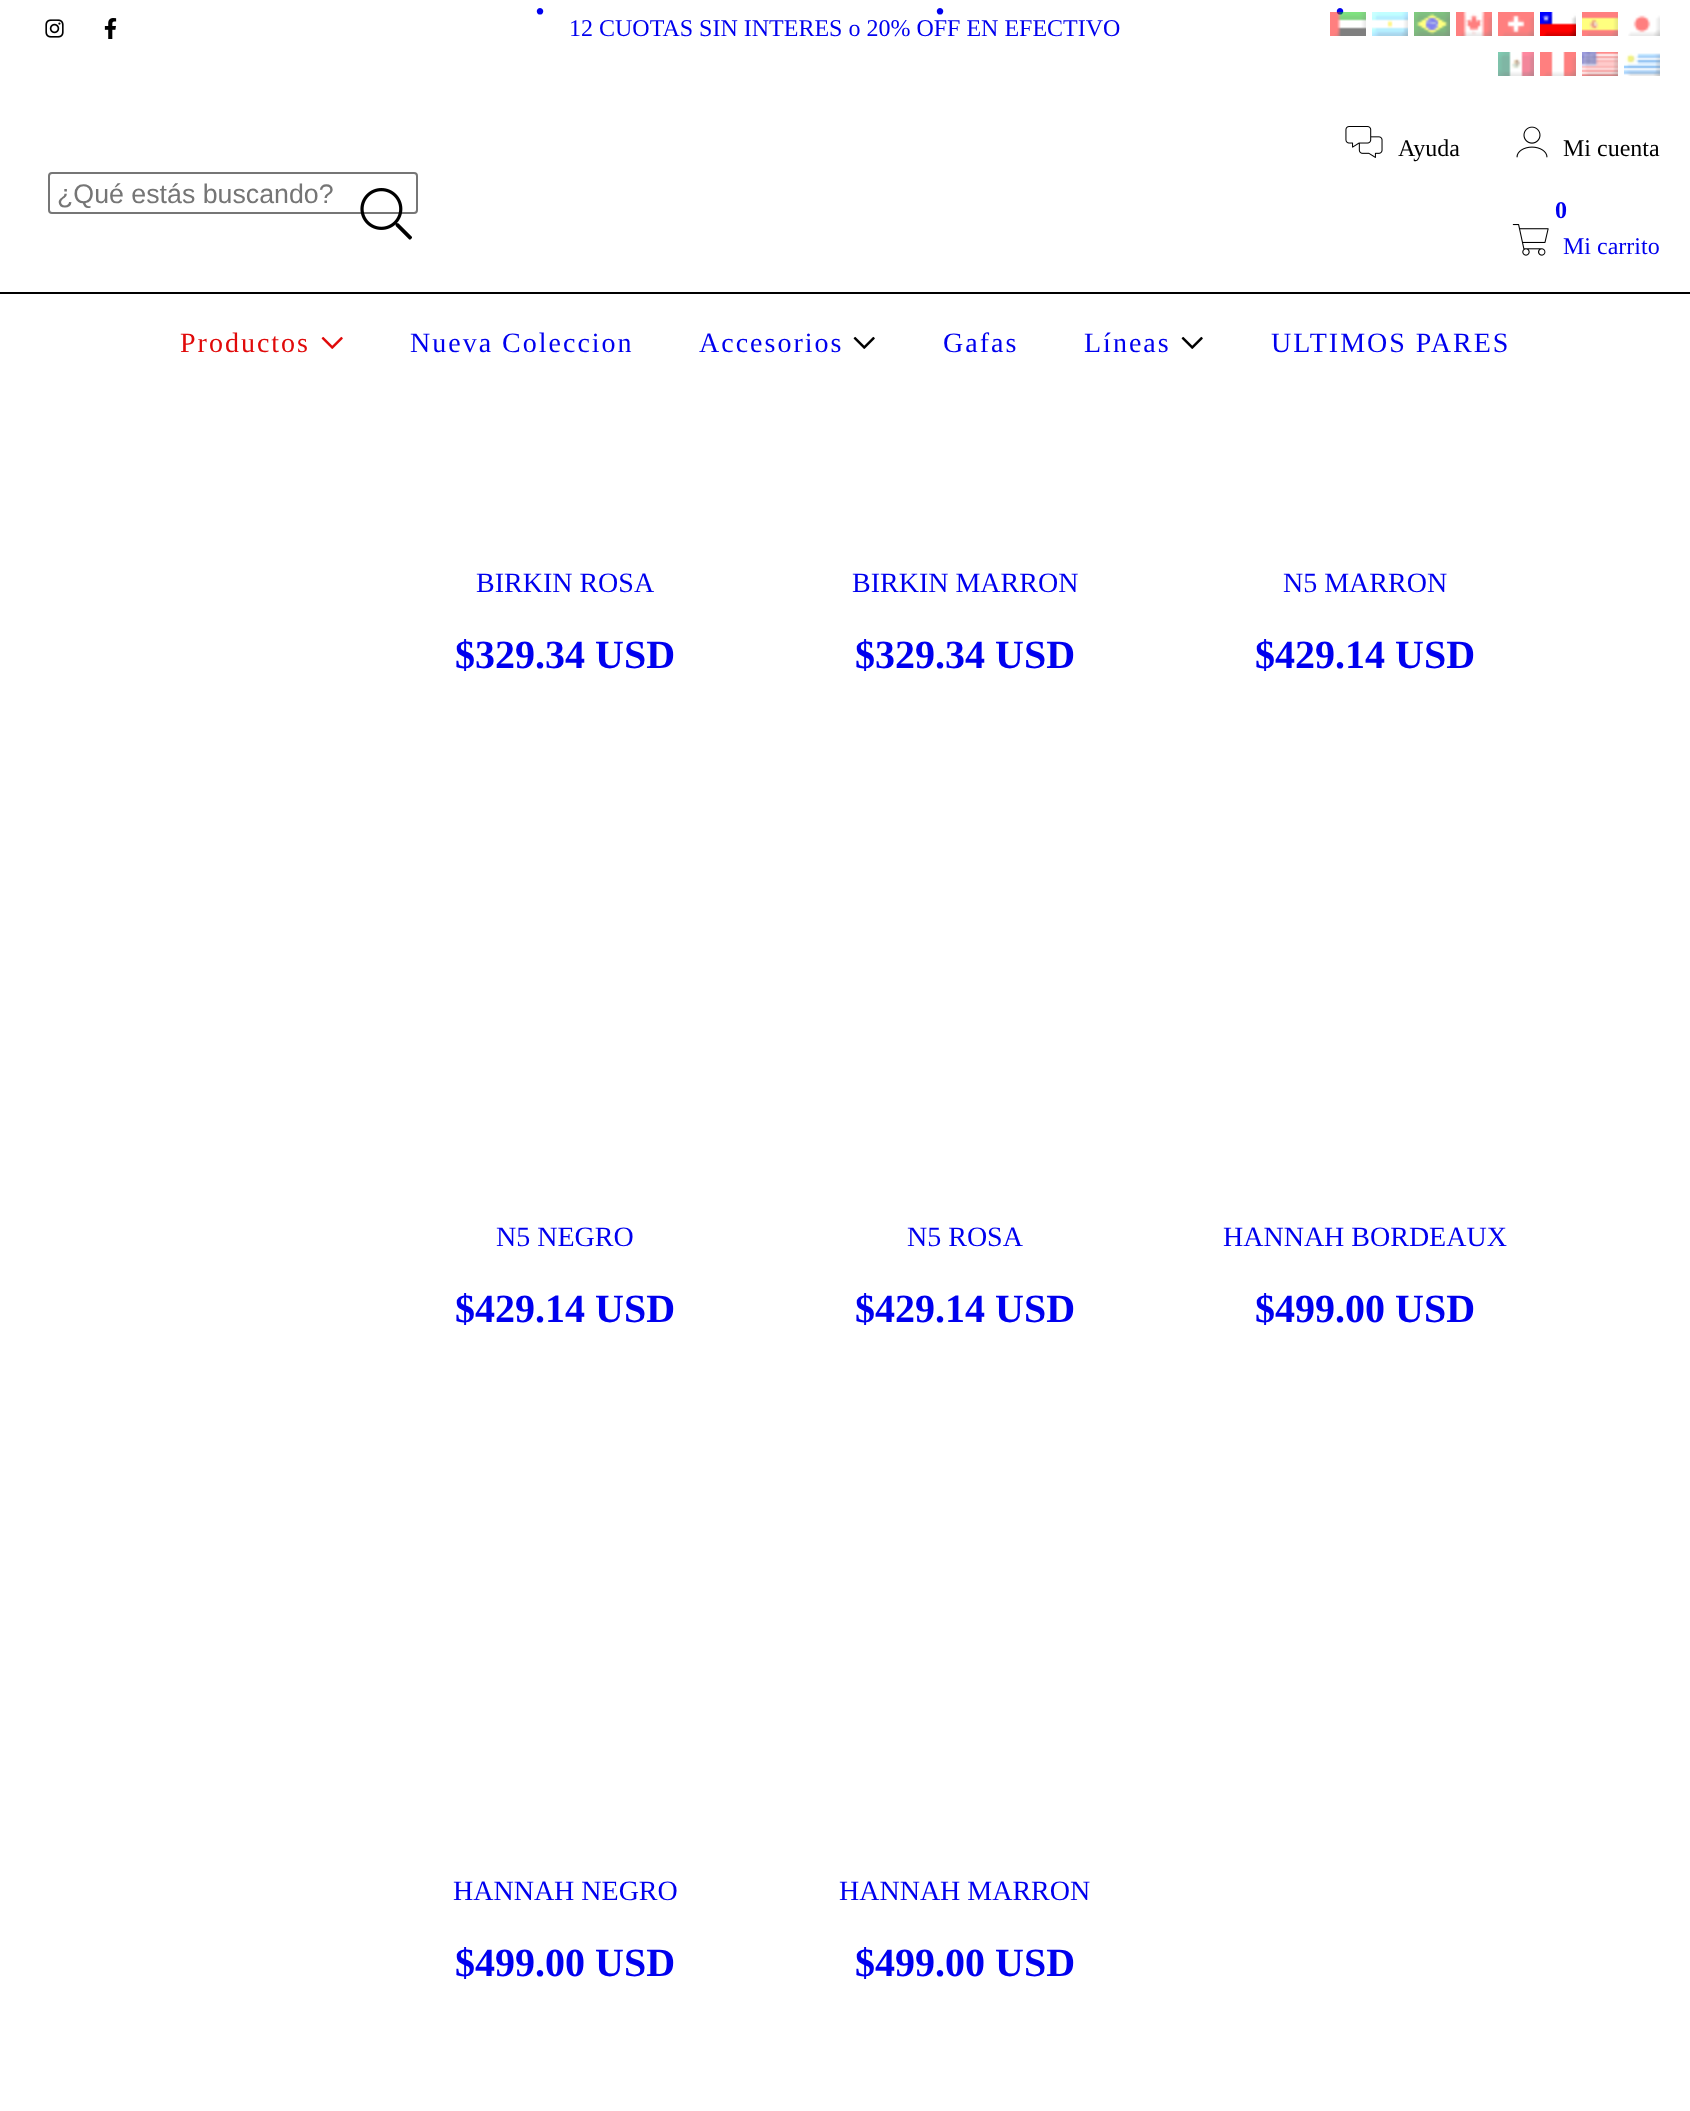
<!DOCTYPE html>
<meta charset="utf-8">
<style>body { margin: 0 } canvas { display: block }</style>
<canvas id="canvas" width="1690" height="2111"></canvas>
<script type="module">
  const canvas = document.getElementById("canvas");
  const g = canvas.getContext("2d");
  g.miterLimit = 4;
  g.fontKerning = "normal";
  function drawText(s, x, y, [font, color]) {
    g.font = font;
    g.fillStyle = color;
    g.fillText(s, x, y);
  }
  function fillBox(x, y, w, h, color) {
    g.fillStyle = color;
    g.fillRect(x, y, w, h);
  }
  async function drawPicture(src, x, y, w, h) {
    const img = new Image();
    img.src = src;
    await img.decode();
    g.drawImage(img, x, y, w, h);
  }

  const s1 = ["bold 40px Liberation Serif", "#0000EE"];
  const s2 = ["28px Liberation Serif", "#0000EE"];
  const s3 = ["24px Liberation Serif", "#0000EE"];
  const s4 = ["26.75px Liberation Sans", "#757575"];
  const s5 = ["24px Liberation Serif", "#000000"];
  const s6 = ["bold 24px Liberation Serif", "#0000EE"];
  const s7 = ["28px Liberation Serif", "#E00A0A"];

  fillBox(0, 0, 1690, 2111, "#FFFFFF");
  drawText(".", 535, 14, s1);
  drawText(".", 935, 14, s1);
  drawText(".", 1335, 14, s1);
  drawText("BIRKIN ROSA", 476, 592, s2);
  drawText("$329.34 USD", 455, 668, s1);
  drawText("BIRKIN MARRON", 852, 592, s2);
  drawText("$329.34 USD", 855, 668, s1);
  drawText("N5 MARRON", 1283, 592, s2);
  drawText("$429.14 USD", 1255, 668, s1);
  drawText("N5 NEGRO", 496, 1246, s2);
  drawText("$429.14 USD", 455, 1322, s1);
  drawText("N5 ROSA", 907, 1246, s2);
  drawText("$429.14 USD", 855, 1322, s1);
  drawText("HANNAH BORDEAUX", 1223, 1246, s2);
  drawText("$499.00 USD", 1255, 1322, s1);
  drawText("HANNAH NEGRO", 453, 1900, s2);
  drawText("$499.00 USD", 455, 1976, s1);
  drawText("HANNAH MARRON", 839, 1900, s2);
  drawText("$499.00 USD", 855, 1976, s1);
  await drawPicture("pic1.png", 45, 19, 19, 19);
  await drawPicture("pic2.png", 104, 18, 13, 21);
  drawText("12 CUOTAS SIN INTERES o 20% OFF EN EFECTIVO", 569, 36, s3);
  await drawPicture("pic3.png", 1330, 12, 36, 24);
  await drawPicture("pic4.png", 1372, 12, 36, 24);
  await drawPicture("pic5.png", 1414, 12, 36, 24);
  await drawPicture("pic6.png", 1456, 12, 36, 24);
  await drawPicture("pic7.png", 1498, 12, 36, 24);
  await drawPicture("pic8.png", 1540, 12, 36, 24);
  await drawPicture("pic9.png", 1582, 12, 36, 24);
  await drawPicture("pic10.png", 1628, 15, 32, 21);
  await drawPicture("pic11.png", 1498, 52, 36, 24);
  await drawPicture("pic12.png", 1540, 52, 36, 24);
  await drawPicture("pic13.png", 1582, 52, 36, 24);
  await drawPicture("pic14.png", 1624, 53, 36, 23);
  g.beginPath();
  g.roundRect(49, 173, 368, 40, 3);
  g.strokeStyle = "#767676";
  g.lineWidth = 2;
  g.stroke();
  drawText("¿Qué estás buscando?", 57, 203, s4);
  await drawPicture("pic15.png", 360, 188, 52, 52);
  await drawPicture("pic16.png", 1345, 126, 38, 32);
  drawText("Ayuda", 1398, 156, s5);
  await drawPicture("pic17.png", 1516, 126, 32, 32);
  drawText("Mi cuenta", 1563, 156, s5);
  drawText("0", 1555, 218, s6);
  await drawPicture("pic18.png", 1512, 224, 37, 32);
  drawText("Mi carrito", 1563, 254, s3);
  fillBox(0, 292, 1690, 2, "#000000");
  g.letterSpacing = "2px";
  drawText("Productos", 180, 352, s7);
  await drawPicture("pic19.png", 321, 336, 22, 13);
  drawText("Nueva Coleccion", 410, 352, s2);
  drawText("Accesorios", 699, 352, s2);
  await drawPicture("pic20.png", 853, 336, 22, 13);
  drawText("Gafas", 943, 352, s2);
  drawText("Líneas", 1084, 352, s2);
  await drawPicture("pic20.png", 1181, 336, 22, 13);
  drawText("ULTIMOS PARES", 1271, 352, s2);
</script>
